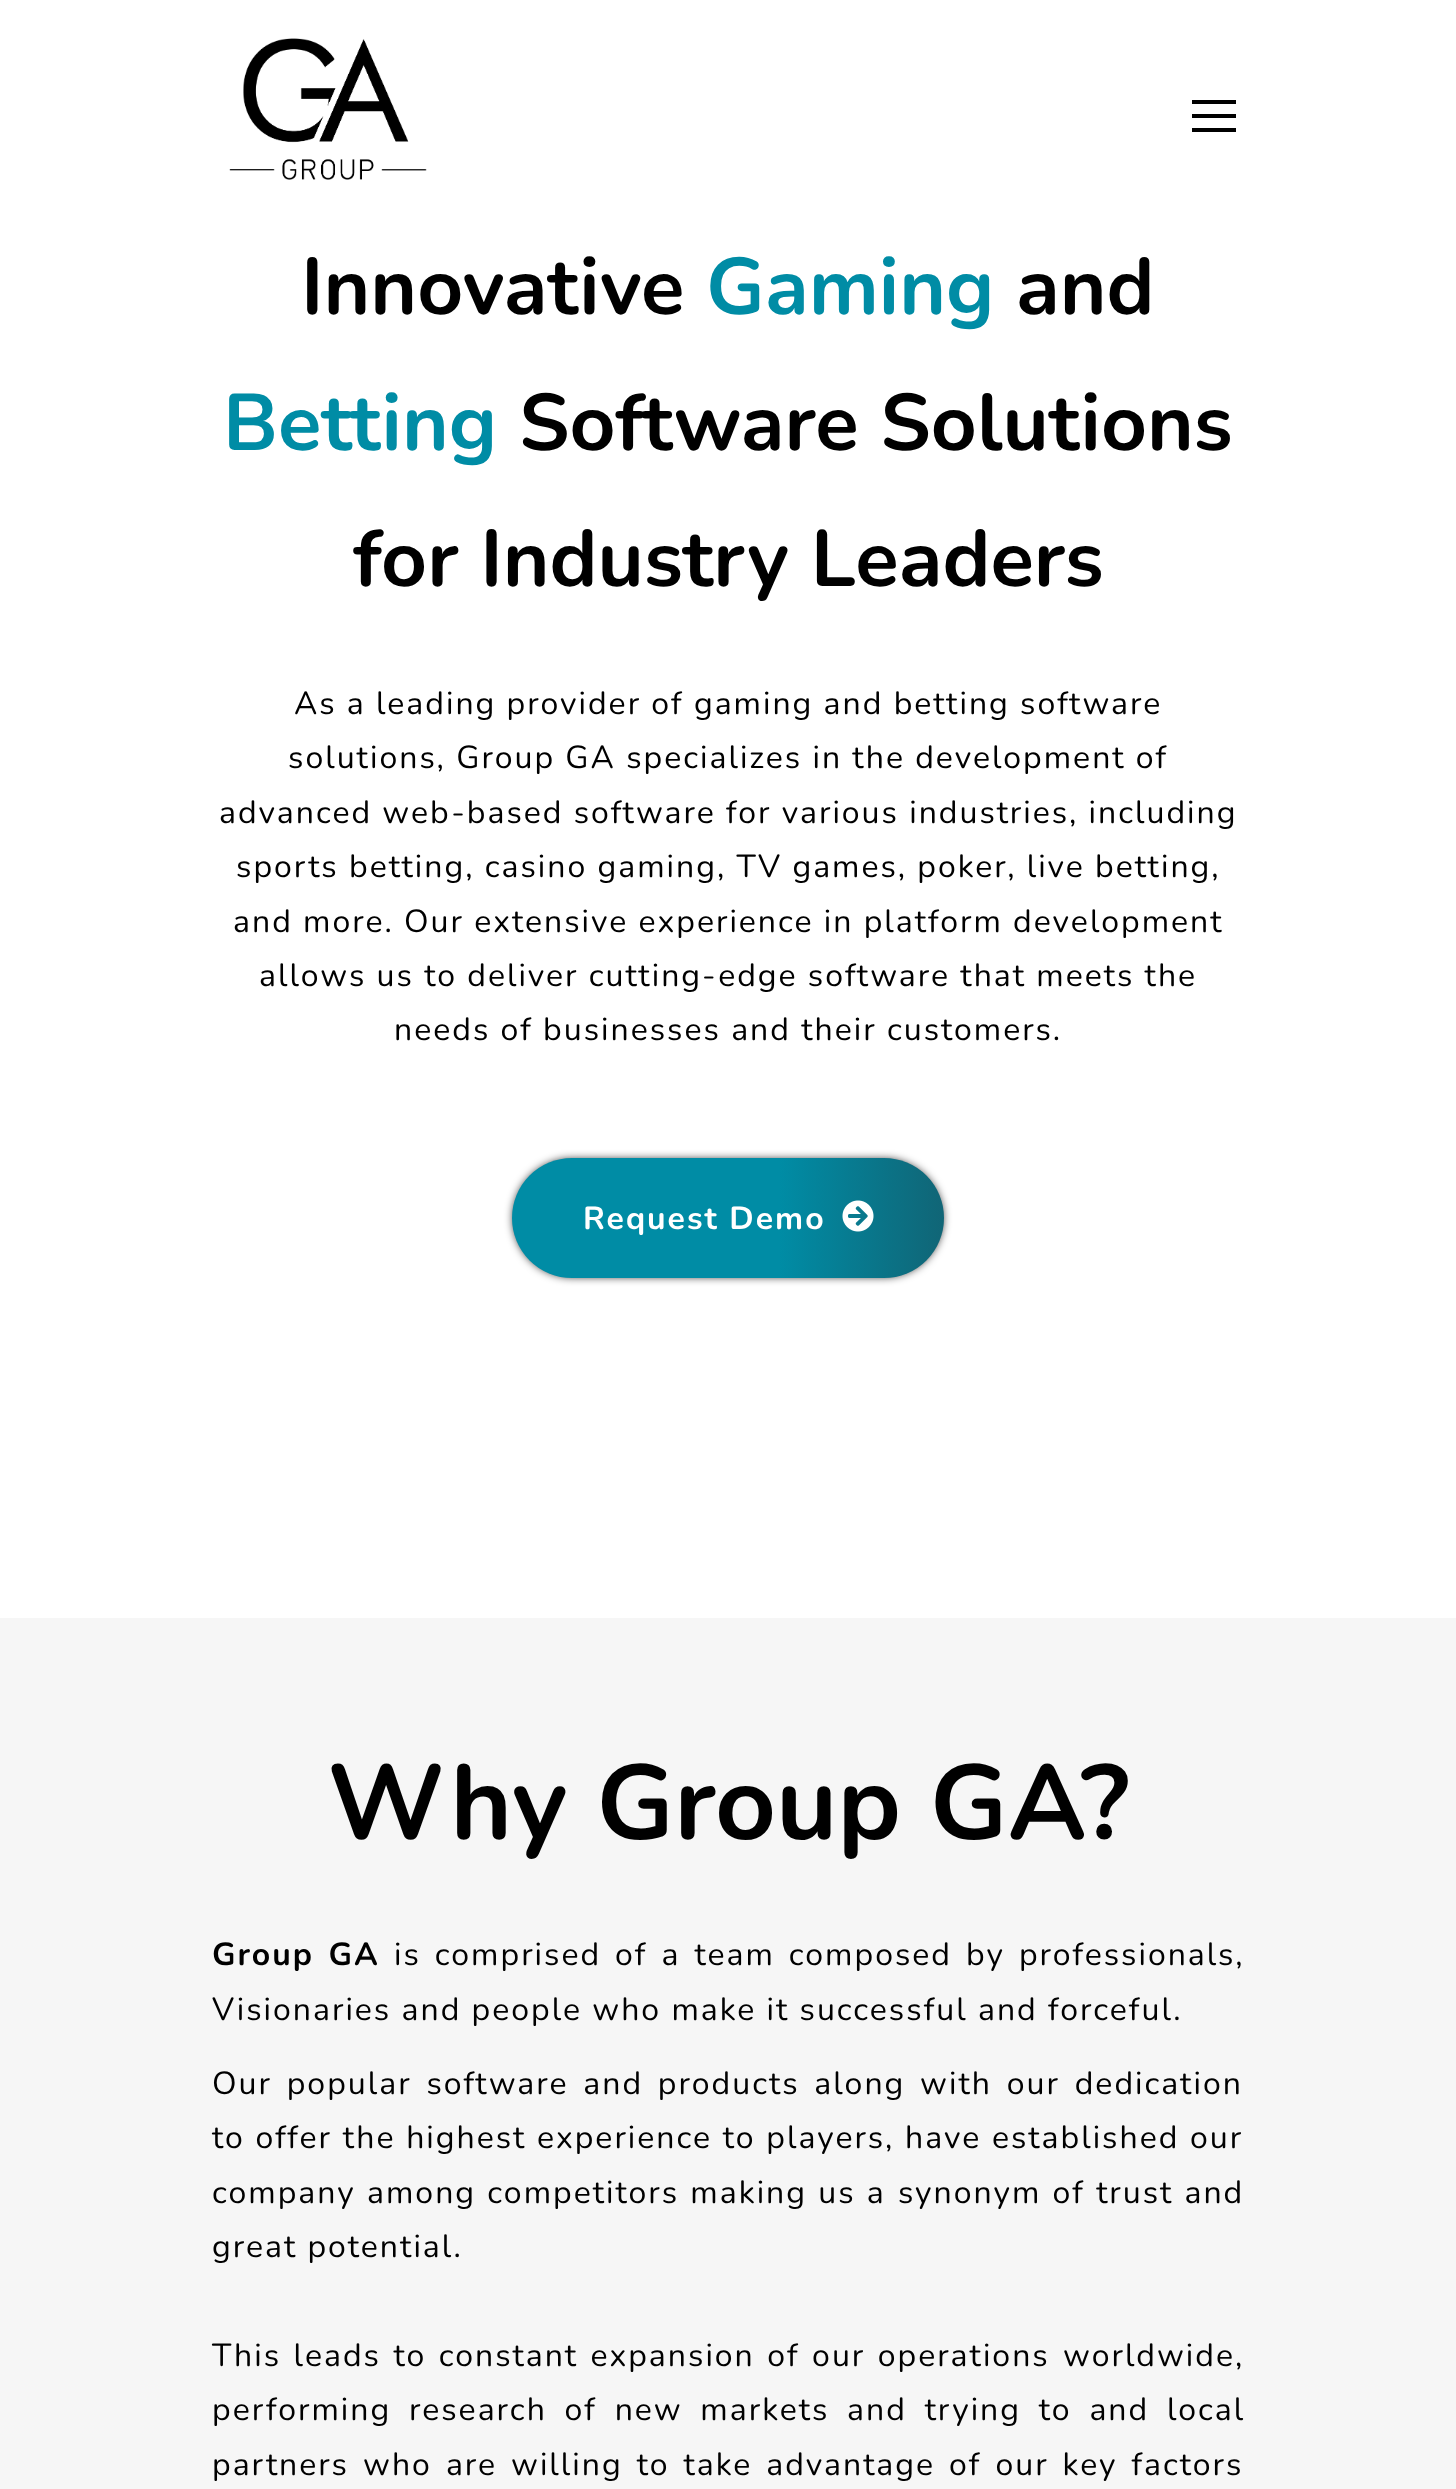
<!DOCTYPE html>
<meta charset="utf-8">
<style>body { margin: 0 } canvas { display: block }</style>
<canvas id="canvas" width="1456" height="2489"></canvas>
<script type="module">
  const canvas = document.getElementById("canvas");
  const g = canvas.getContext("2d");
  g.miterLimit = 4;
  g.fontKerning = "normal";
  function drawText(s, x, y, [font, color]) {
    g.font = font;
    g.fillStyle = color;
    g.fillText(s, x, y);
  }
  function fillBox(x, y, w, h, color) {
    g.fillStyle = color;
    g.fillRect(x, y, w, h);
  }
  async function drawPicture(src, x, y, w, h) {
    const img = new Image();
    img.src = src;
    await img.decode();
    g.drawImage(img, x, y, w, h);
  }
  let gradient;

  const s1 = ["bold 80px Nunito", "#000000"];
  const s2 = ["bold 80px Nunito", "#008CA5"];
  const s3 = ["32px Nunito", "#000000"];
  const s4 = ["bold 32px Nunito", "#FFFFFF"];
  const s5 = ["bold 106px Nunito", "#000000"];
  const s6 = ["bold 32px Nunito", "#000000"];

  fillBox(0, 0, 1456, 2489, "#FFFFFF");
  await drawPicture("pic1.png", 229, 38, 198, 142);
  fillBox(1192, 114, 44, 4, "#000000");
  fillBox(1192, 100, 44, 4, "#000000");
  fillBox(1192, 128, 44, 4, "#000000");
  drawText("Innovative", 301, 314, s1);
  drawText("Gaming", 706, 314, s2);
  drawText("and", 1016, 314, s1);
  drawText("Betting", 223, 450, s2);
  drawText("Software Solutions", 519, 450, s1);
  drawText("for Industry Leaders", 353, 586, s1);
  g.letterSpacing = "2px";
  drawText("As a leading provider of gaming and betting software", 294, 714, s3);
  drawText("solutions, Group GA specializes in the development of", 288, 768, s3);
  drawText("advanced web-based software for various industries, including", 219, 823, s3);
  drawText("sports betting, casino gaming, TV games, poker, live betting,", 236, 877, s3);
  drawText("and more. Our extensive experience in platform development", 233, 932, s3);
  drawText("allows us to deliver cutting-edge software that meets the", 259, 986, s3);
  drawText("needs of businesses and their customers.", 394, 1040, s3);
  g.filter = "blur(5px)";
  g.beginPath();
  g.roundRect(514, 1160, 428, 116, 58);
  g.fill();
  g.filter = "none";
  gradient = g.createLinearGradient(296, 1218, 1160, 1218);
  gradient.addColorStop(0, "#008CA5");
  gradient.addColorStop(0.56, "#008CA5");
  gradient.addColorStop(1, "#263238");
  g.fillStyle = gradient;
  g.beginPath();
  g.roundRect(512, 1158, 432, 120, 60);
  g.fill();
  drawText("Request Demo", 583, 1229, s4);
  await drawPicture("pic2.png", 842, 1200, 32, 32);
  fillBox(0, 1618, 1456, 871, "#F6F6F6");
  g.letterSpacing = "0px";
  drawText("Why Group GA?", 327, 1839, s5);
  g.letterSpacing = "2px";
  g.wordSpacing = "3.75px";
  drawText("Group GA", 212, 1965, s6);
  drawText("is comprised of a team composed by professionals,", 394, 1965, s3);
  g.wordSpacing = "0px";
  drawText("Visionaries and people who make it successful and forceful.", 212, 2020, s3);
  g.wordSpacing = "4.5px";
  drawText("Our popular software and products along with our dedication", 212, 2094, s3);
  g.wordSpacing = "0.5px";
  drawText("to offer the highest", 212, 2148, s3);
  drawText("experience to players, have established our", 537, 2148, s3);
  g.wordSpacing = "1px";
  drawText("company among competitors making us a", 212, 2203, s3);
  drawText("synonym of trust and", 898, 2203, s3);
  g.wordSpacing = "0px";
  drawText("great potential.", 212, 2257, s3);
  g.wordSpacing = "2.25px";
  drawText("This leads to constant expansion of our operations", 212, 2366, s3);
  g.wordSpacing = "0px";
  drawText("worldwide,", 1063, 2366, s3);
  g.wordSpacing = "7.5px";
  drawText("performing research of new markets and trying to and local", 212, 2420, s3);
  g.wordSpacing = "3.75px";
  drawText("partners who are", 212, 2475, s3);
  drawText("willing to take advantage of our key factors", 511, 2475, s3);
</script>
